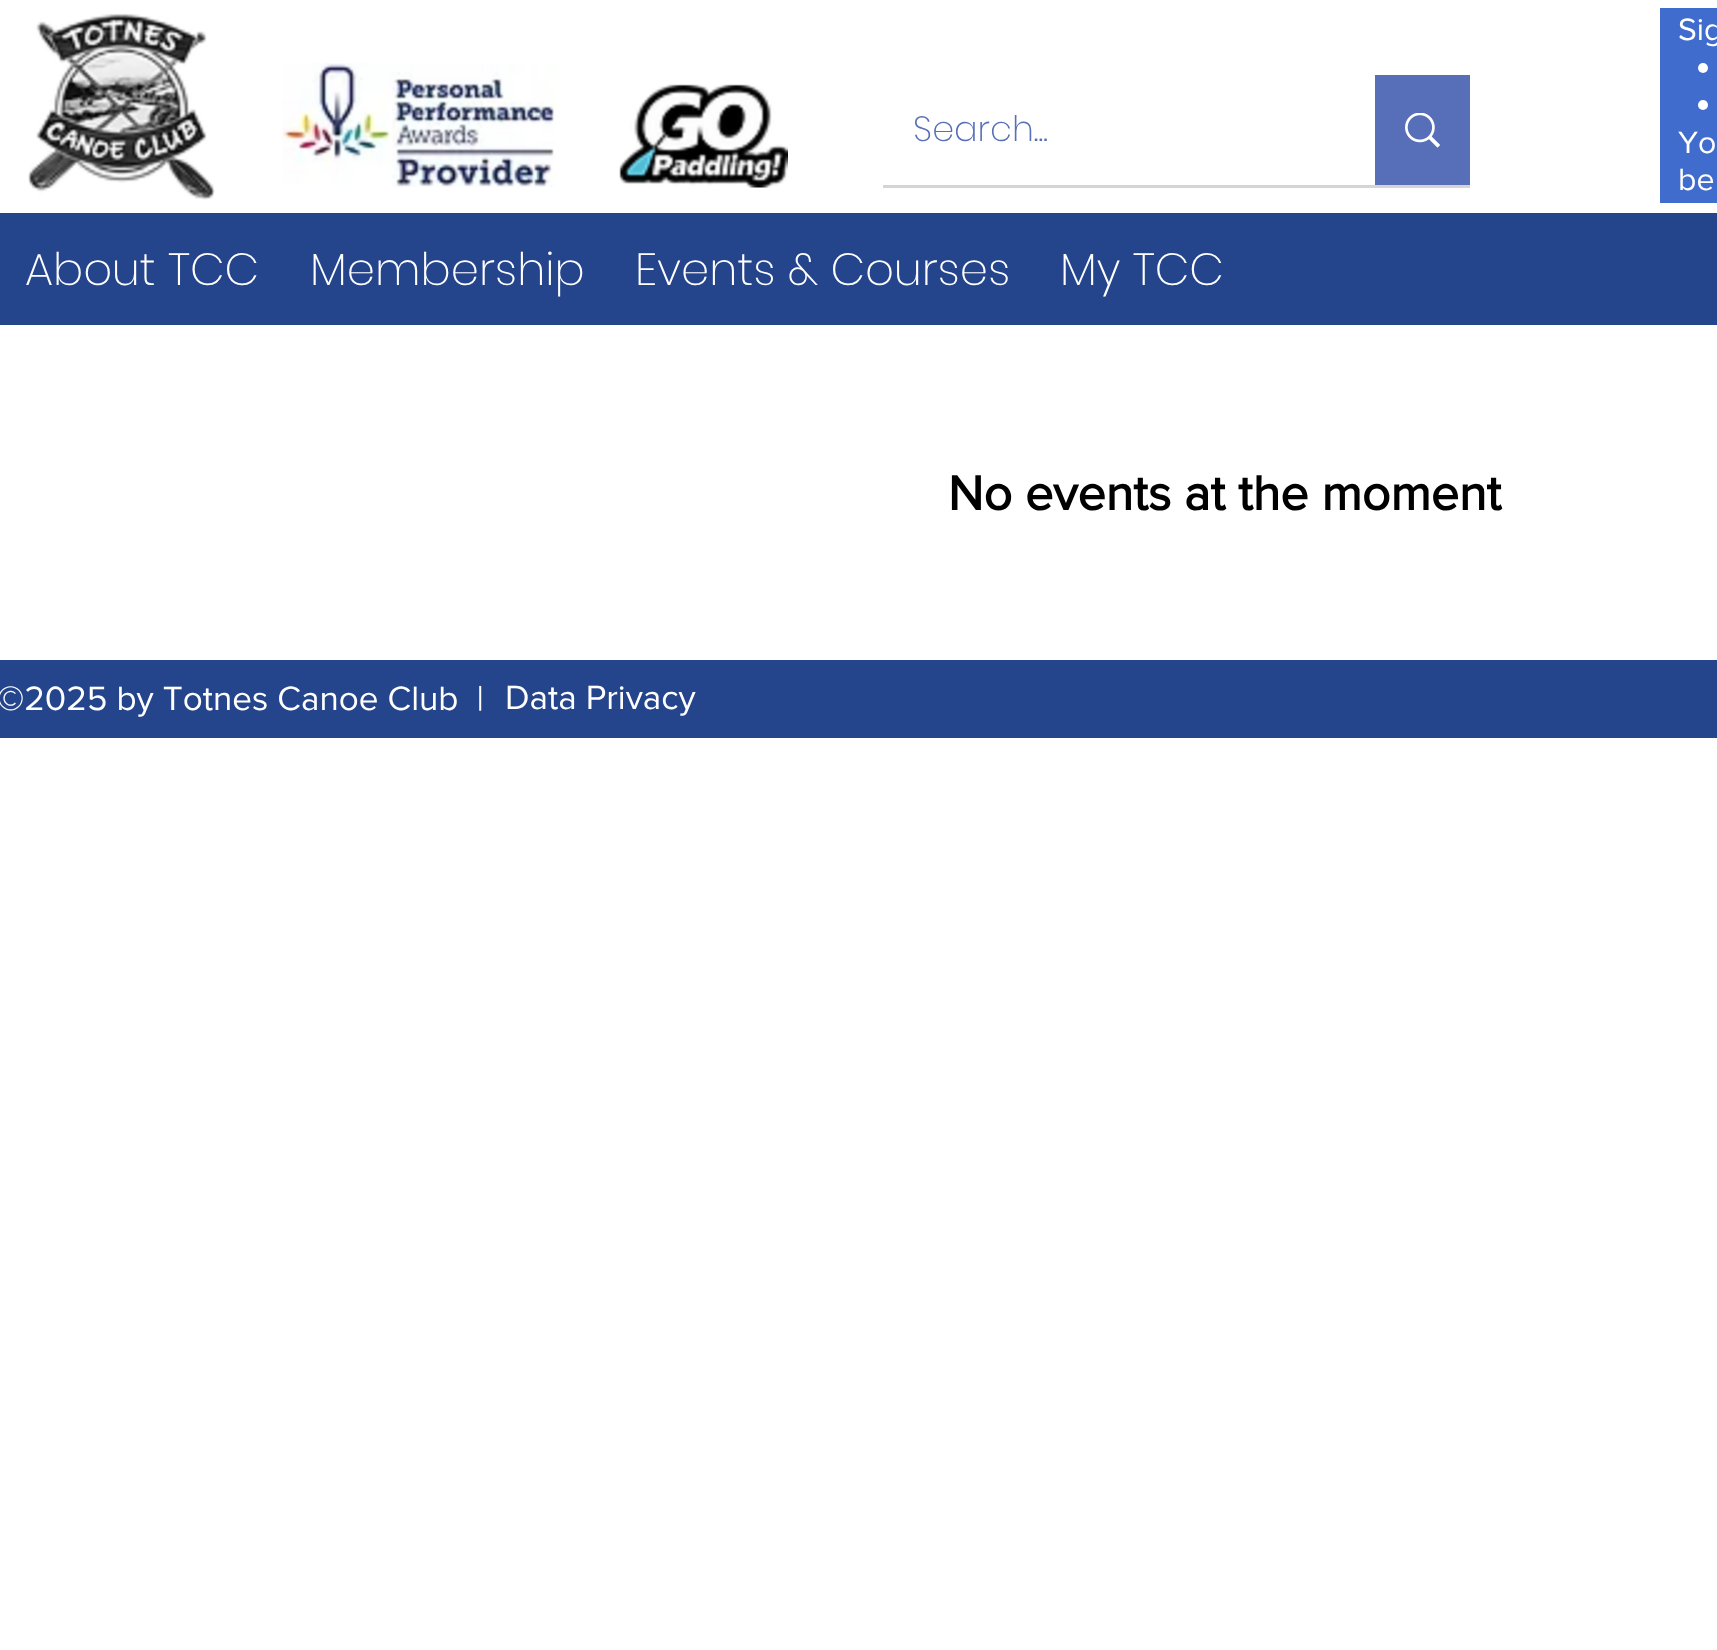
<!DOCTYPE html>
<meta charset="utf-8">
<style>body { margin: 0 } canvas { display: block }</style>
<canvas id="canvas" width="1717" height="1650"></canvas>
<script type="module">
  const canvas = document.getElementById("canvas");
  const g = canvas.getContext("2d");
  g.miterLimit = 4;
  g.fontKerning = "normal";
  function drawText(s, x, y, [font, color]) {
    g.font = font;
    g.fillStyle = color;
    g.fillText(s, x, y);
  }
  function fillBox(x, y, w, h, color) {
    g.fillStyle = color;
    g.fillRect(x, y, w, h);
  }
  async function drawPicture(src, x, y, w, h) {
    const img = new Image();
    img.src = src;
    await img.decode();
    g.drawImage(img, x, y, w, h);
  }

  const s1 = ["200 35px Poppins", "#566FB8"];
  const s2 = ["200 45px Poppins", "#FFFFFF"];
  const s3 = ["32px 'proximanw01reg'", "#FFFFFF"];
  const s4 = ["bold 50px 'proximanw01reg'", "#000000"];
  const s5 = ["35px 'proximanw01reg'", "#FFFFFF"];

  fillBox(0, 0, 1717, 1650, "#FFFFFF");
  await drawPicture("pic1.png", 28, 13, 187, 187);
  await drawPicture("pic2.png", 282, 63, 276, 124);
  await drawPicture("pic3.png", 619, 84, 169, 104);
  fillBox(883, 185, 587, 3, "#D5D5D5");
  drawText("Search...", 913, 141, s1);
  fillBox(1375, 75, 95, 110, "#566FB8");
  await drawPicture("pic4.png", 1405, 113, 35, 35);
  fillBox(0, 213, 1717, 112, "#24448C");
  drawText("About TCC", 25, 285, s2);
  drawText("Membership", 310, 285, s2);
  drawText("Events & Courses", 635, 285, s2);
  drawText("My TCC", 1060, 285, s2);
  fillBox(1660, 8, 57, 195, "#406CCE");
  drawText("Sig", 1678, 40, s3);
  g.beginPath();
  g.arc(1703, 68, 5, 0, Math.PI * 2);
  g.fill();
  g.beginPath();
  g.arc(1703, 105, 5, 0, Math.PI * 2);
  g.fill();
  drawText("Yo", 1678, 153, s3);
  drawText("be", 1678, 190, s3);
  drawText("No events at the moment", 948, 510, s4);
  fillBox(0, 660, 1717, 78, "#24448C");
  drawText("©2025 by Totnes Canoe Club  |", -3, 710, s5);
  drawText("Data Privacy", 505, 709, s5);
</script>
